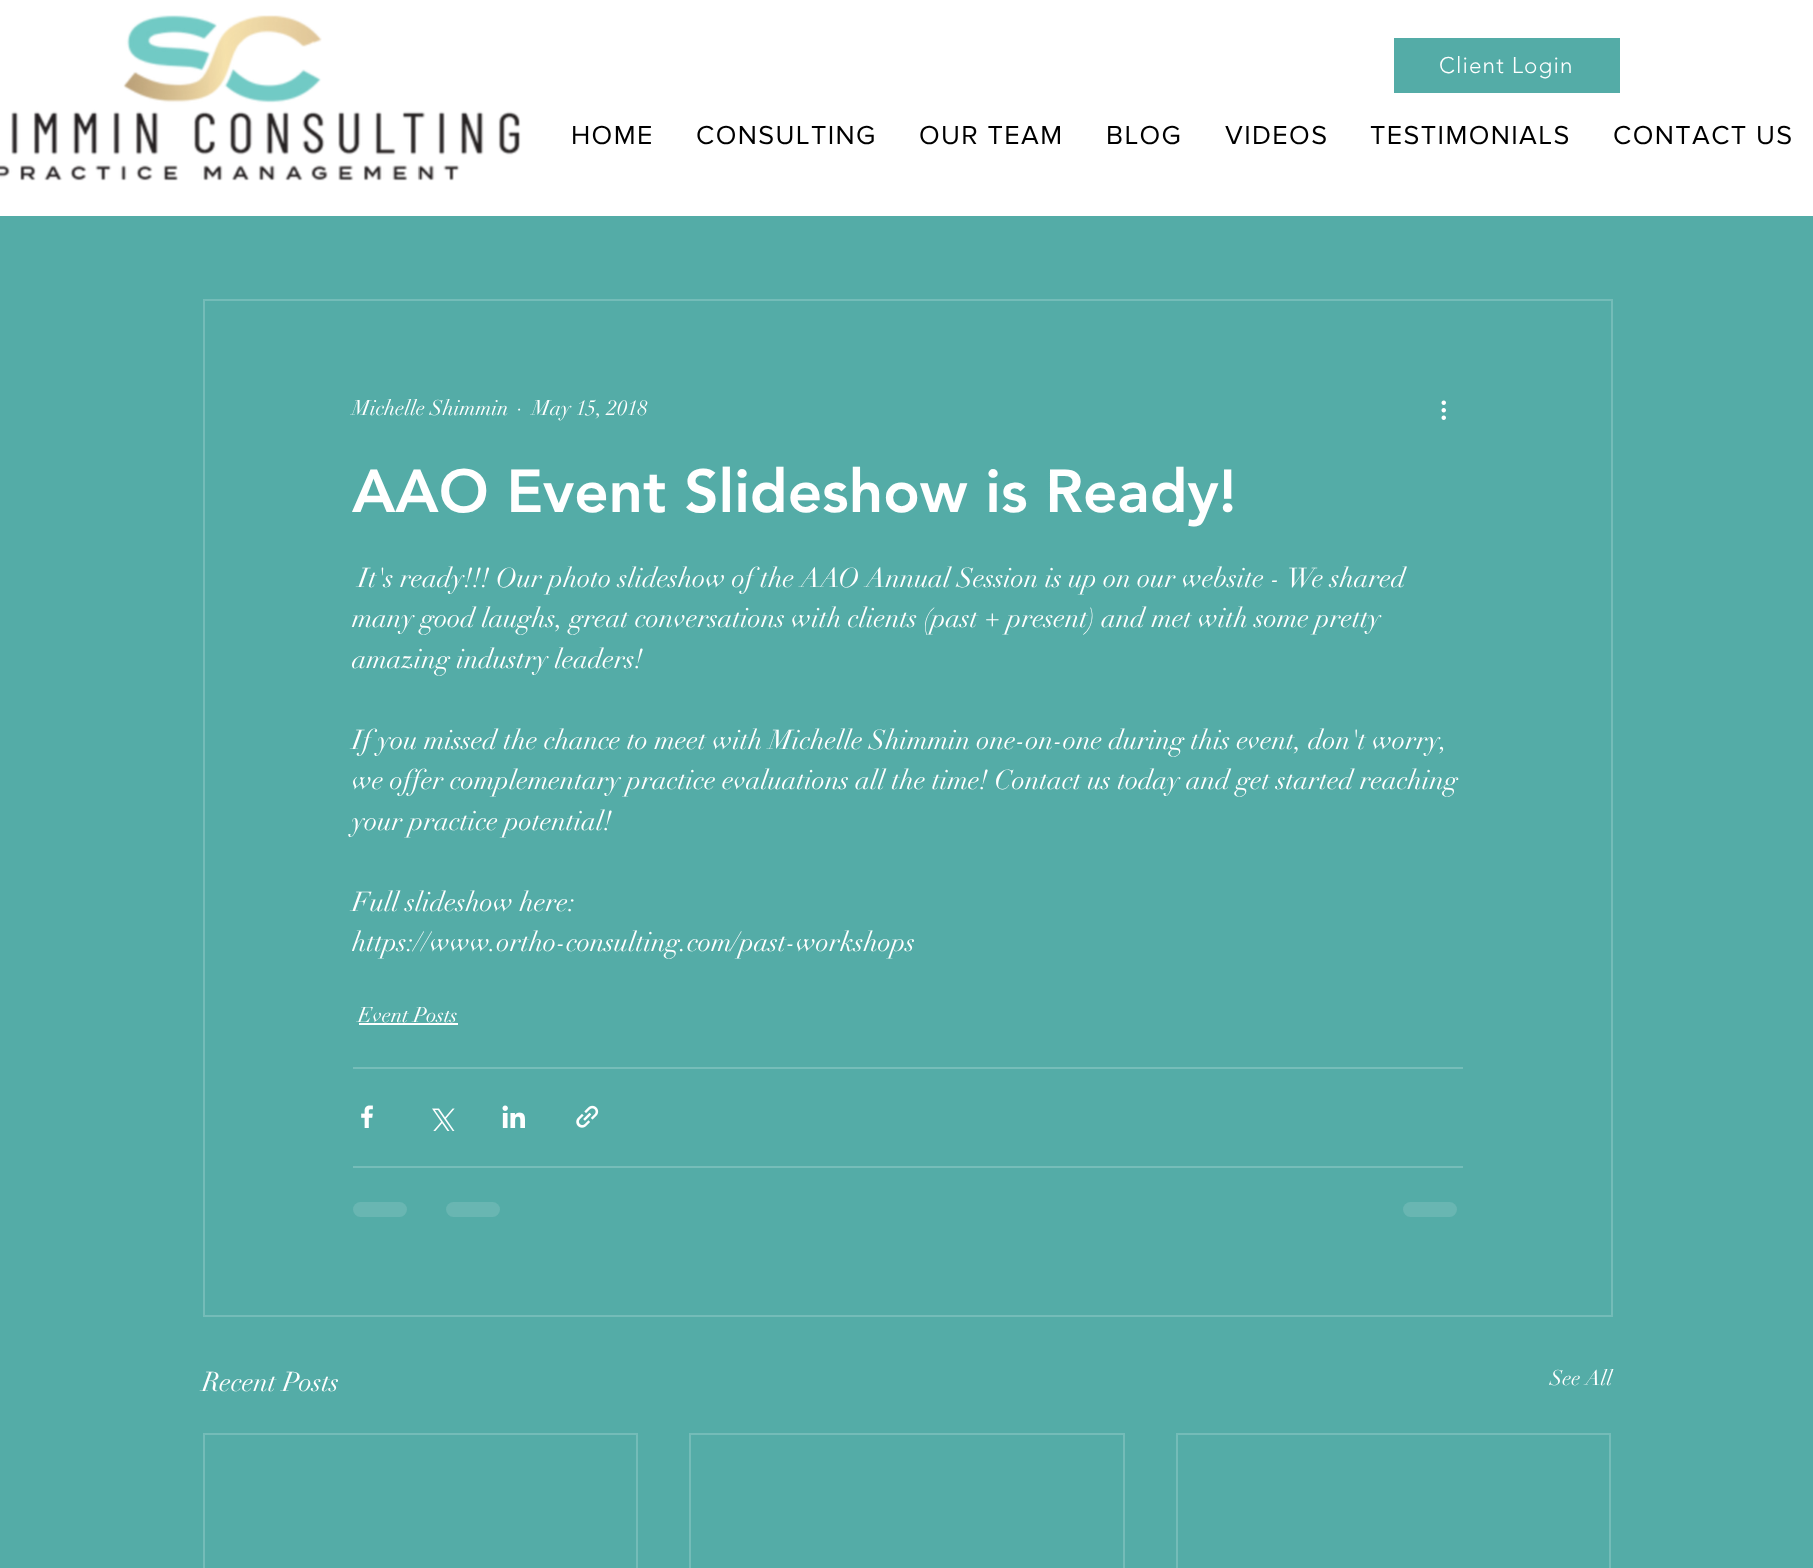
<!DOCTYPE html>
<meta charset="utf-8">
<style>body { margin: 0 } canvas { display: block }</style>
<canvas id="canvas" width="1813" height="1568"></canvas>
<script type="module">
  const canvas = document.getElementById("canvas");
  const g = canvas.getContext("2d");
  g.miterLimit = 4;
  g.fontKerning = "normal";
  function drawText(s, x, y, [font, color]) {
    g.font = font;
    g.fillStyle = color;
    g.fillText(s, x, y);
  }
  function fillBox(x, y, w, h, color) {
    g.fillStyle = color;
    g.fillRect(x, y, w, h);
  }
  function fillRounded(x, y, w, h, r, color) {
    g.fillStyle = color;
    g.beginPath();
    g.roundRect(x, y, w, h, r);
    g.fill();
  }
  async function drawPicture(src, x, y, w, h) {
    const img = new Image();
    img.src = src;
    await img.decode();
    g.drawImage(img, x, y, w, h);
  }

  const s1 = ["300 22.5px 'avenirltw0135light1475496'", "#FFFFFF"];
  const s2 = ["27px 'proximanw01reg'", "#000000"];
  const s3 = ["21px didot", "#FFFFFF"];
  const s4 = ["900 60px 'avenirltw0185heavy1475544'", "#FFFFFF"];
  const s5 = ["27px didot", "#FFFFFF"];

  fillBox(0, 0, 1813, 1568, "#54ACA7");
  fillBox(0, 0, 1813, 216, "#FFFFFF");
  await drawPicture("pic1.png", 0, 15, 521, 166);
  fillBox(1394, 38, 226, 55, "#54ACA7");
  g.letterSpacing = "1.1px";
  drawText("Client Login", 1439, 73, s1);
  g.letterSpacing = "1.4px";
  drawText("HOME", 571, 144, s2);
  drawText("CONSULTING", 696, 144, s2);
  drawText("OUR TEAM", 919, 144, s2);
  drawText("BLOG", 1106, 144, s2);
  drawText("VIDEOS", 1225, 144, s2);
  drawText("TESTIMONIALS", 1370, 144, s2);
  drawText("CONTACT US", 1613, 144, s2);
  g.strokeStyle = "#74BCB8";
  g.lineWidth = 2;
  g.strokeRect(204, 300, 1408, 1016);
  g.letterSpacing = "0px";
  drawText("Michelle Shimmin", 352, 415, s3);
  drawText("·", 517, 415, s3);
  drawText("May 15, 2018", 532, 415, s3);
  await drawPicture("pic2.png", 1441, 400, 5, 20);
  drawText("AAO Event Slideshow is Ready!", 352, 512, s4);
  drawText("It's ready!!! Our photo slideshow of the AAO Annual Session is up on our website - We shared", 358, 587, s5);
  drawText("many good laughs, great conversations with clients (past + present) and met with some pretty", 352, 627, s5);
  drawText("amazing industry leaders!", 352, 668, s5);
  drawText("If you missed the chance to meet with Michelle Shimmin one-on-one during this event, don't worry,", 352, 749, s5);
  drawText("we offer complementary practice evaluations all the time! Contact us today and get started reaching", 352, 789, s5);
  drawText("your practice potential!", 352, 830, s5);
  drawText("Full slideshow here:", 352, 911, s5);
  drawText("https://www.ortho-consulting.com/past-workshops", 352, 951, s5);
  drawText("Event Posts", 358, 1022, s3);
  fillBox(359, 1023, 99, 2, "#FFFFFF");
  fillBox(353, 1067, 1110, 2, "#76BDB9");
  await drawPicture("pic3.png", 361, 1105, 12, 23);
  await drawPicture("pic4.png", 432, 1108, 23, 23);
  await drawPicture("pic5.png", 502, 1105, 23, 23);
  await drawPicture("pic6.png", 576, 1105, 23, 23);
  fillBox(353, 1166, 1110, 2, "#76BDB9");
  fillRounded(353, 1202, 54, 15, 7.5, "#69B6B2");
  fillRounded(446, 1202, 54, 15, 7.5, "#69B6B2");
  fillRounded(1403, 1202, 54, 15, 7.5, "#69B6B2");
  drawText("Recent Posts", 202, 1391, s5);
  drawText("See All", 1550, 1385, s3);
  g.strokeRect(204, 1434, 433, 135);
  g.strokeRect(690, 1434, 434, 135);
  g.strokeRect(1177, 1434, 433, 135);
</script>
